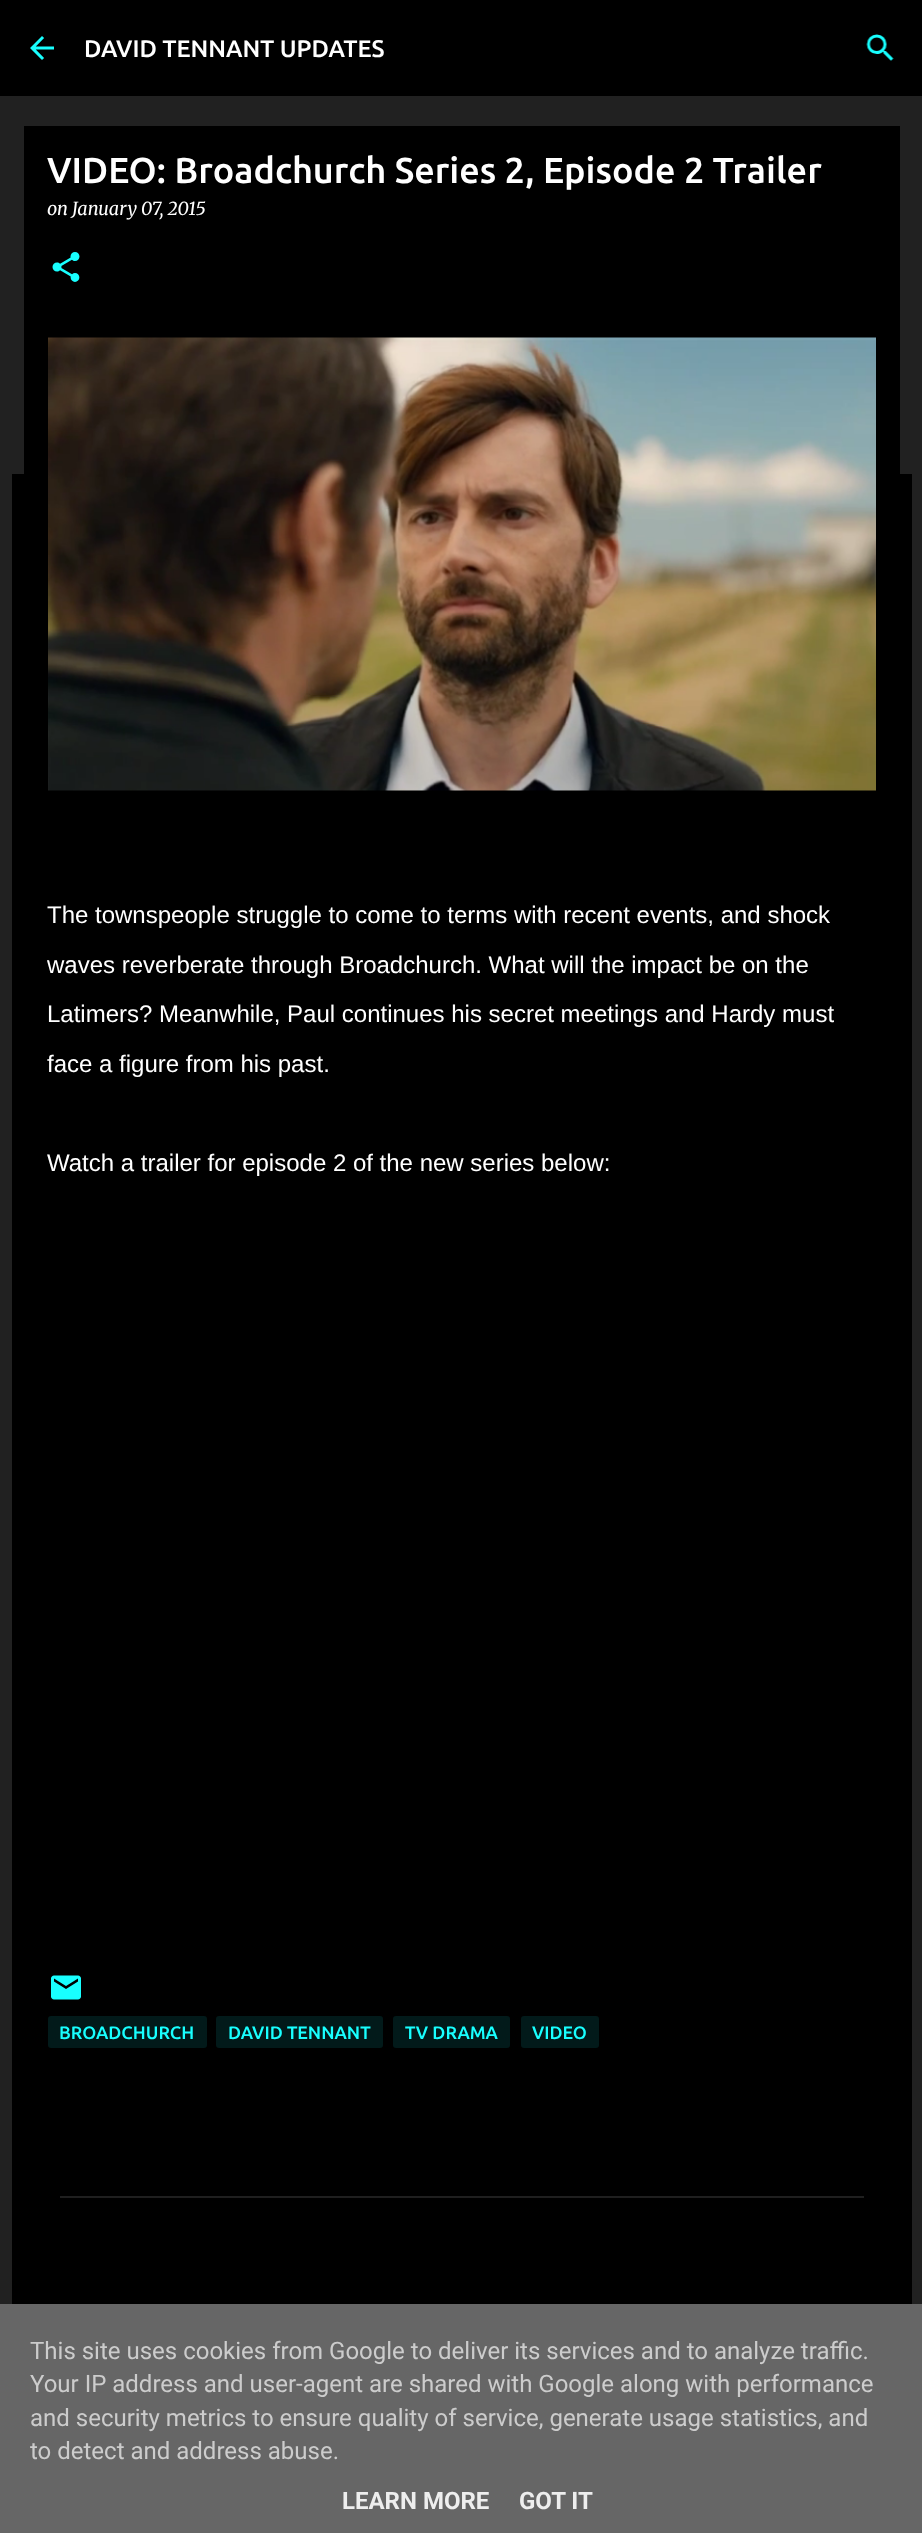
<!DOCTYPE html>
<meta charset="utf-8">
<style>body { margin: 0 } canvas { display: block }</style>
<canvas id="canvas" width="922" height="2533"></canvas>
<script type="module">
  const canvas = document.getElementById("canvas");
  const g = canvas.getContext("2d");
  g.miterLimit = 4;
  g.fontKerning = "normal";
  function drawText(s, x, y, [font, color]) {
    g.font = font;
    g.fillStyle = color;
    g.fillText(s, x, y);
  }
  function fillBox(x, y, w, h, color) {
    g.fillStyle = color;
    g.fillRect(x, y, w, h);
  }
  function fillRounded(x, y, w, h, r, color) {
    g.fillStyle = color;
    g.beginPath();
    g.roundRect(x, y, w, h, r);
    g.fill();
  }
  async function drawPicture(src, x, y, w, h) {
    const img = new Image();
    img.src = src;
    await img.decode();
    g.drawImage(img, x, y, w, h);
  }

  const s1 = ["500 24px Ubuntu", "#FFFFFF"];
  const s2 = ["500 36px Ubuntu", "#FFFFFF"];
  const s3 = ["italic 18px Merriweather", "#FFFFFF"];
  const s4 = ["24px Liberation Sans", "#FFFFFF"];
  const s5 = ["500 18px Ubuntu", "#18FFFF"];
  const s6 = ["24px Roboto", "#CCCCCC"];
  const s7 = ["bold 24px Roboto", "#EEEEEE"];

  fillBox(0, 0, 922, 2533, "#212121");
  fillBox(0, 0, 922, 96, "#000000");
  await drawPicture("pic1.png", 30, 36, 24, 24);
  drawText("DAVID TENNANT UPDATES", 84, 57, s1);
  await drawPicture("pic2.png", 866, 34, 28, 27);
  fillBox(12, 474, 900, 1830, "#000000");
  fillBox(24, 126, 876, 348, "#000000");
  drawText("VIDEO: Broadchurch Series 2, Episode 2 Trailer", 47, 183, s2);
  drawText("on January 07, 2015", 47, 215, s3);
  await drawPicture("pic3.png", 52, 252, 28, 30);
  await drawPicture("pic4.png", 48, 337, 828, 454);
  drawText("The townspeople struggle to come to terms with recent events, and shock", 47, 923, s4);
  drawText("waves reverberate through Broadchurch. What will the impact be on the", 47, 973, s4);
  drawText("Latimers? Meanwhile, Paul continues his secret meetings and Hardy must", 47, 1022, s4);
  drawText("face a figure from his past.", 47, 1072, s4);
  drawText("Watch a trailer for episode 2 of the new series below:", 47, 1171, s4);
  await drawPicture("pic5.png", 51, 1975, 30, 25);
  fillRounded(48, 2016, 159, 32, 3, "#021A1A");
  drawText("BROADCHURCH", 59, 2039, s5);
  fillRounded(216, 2016, 167, 32, 3, "#021A1A");
  drawText("DAVID TENNANT", 228, 2039, s5);
  fillRounded(393, 2016, 117, 32, 3, "#021A1A");
  drawText("TV DRAMA", 405, 2039, s5);
  fillRounded(521, 2016, 78, 32, 3, "#021A1A");
  drawText("VIDEO", 532, 2039, s5);
  fillBox(60, 2196, 804, 2, "#1F1F1F");
  fillBox(0, 2304, 922, 229, "#666666");
  drawText("This site uses cookies from Google to deliver its services and to analyze traffic.", 30, 2359, s6);
  drawText("Your IP address and user-agent are shared with Google along with performance", 30, 2392, s6);
  drawText("and security metrics to ensure quality of service, generate usage statistics, and", 30, 2426, s6);
  drawText("to detect and address abuse.", 30, 2459, s6);
  drawText("LEARN MORE", 342, 2509, s7);
  drawText("GOT IT", 519, 2509, s7);
</script>
